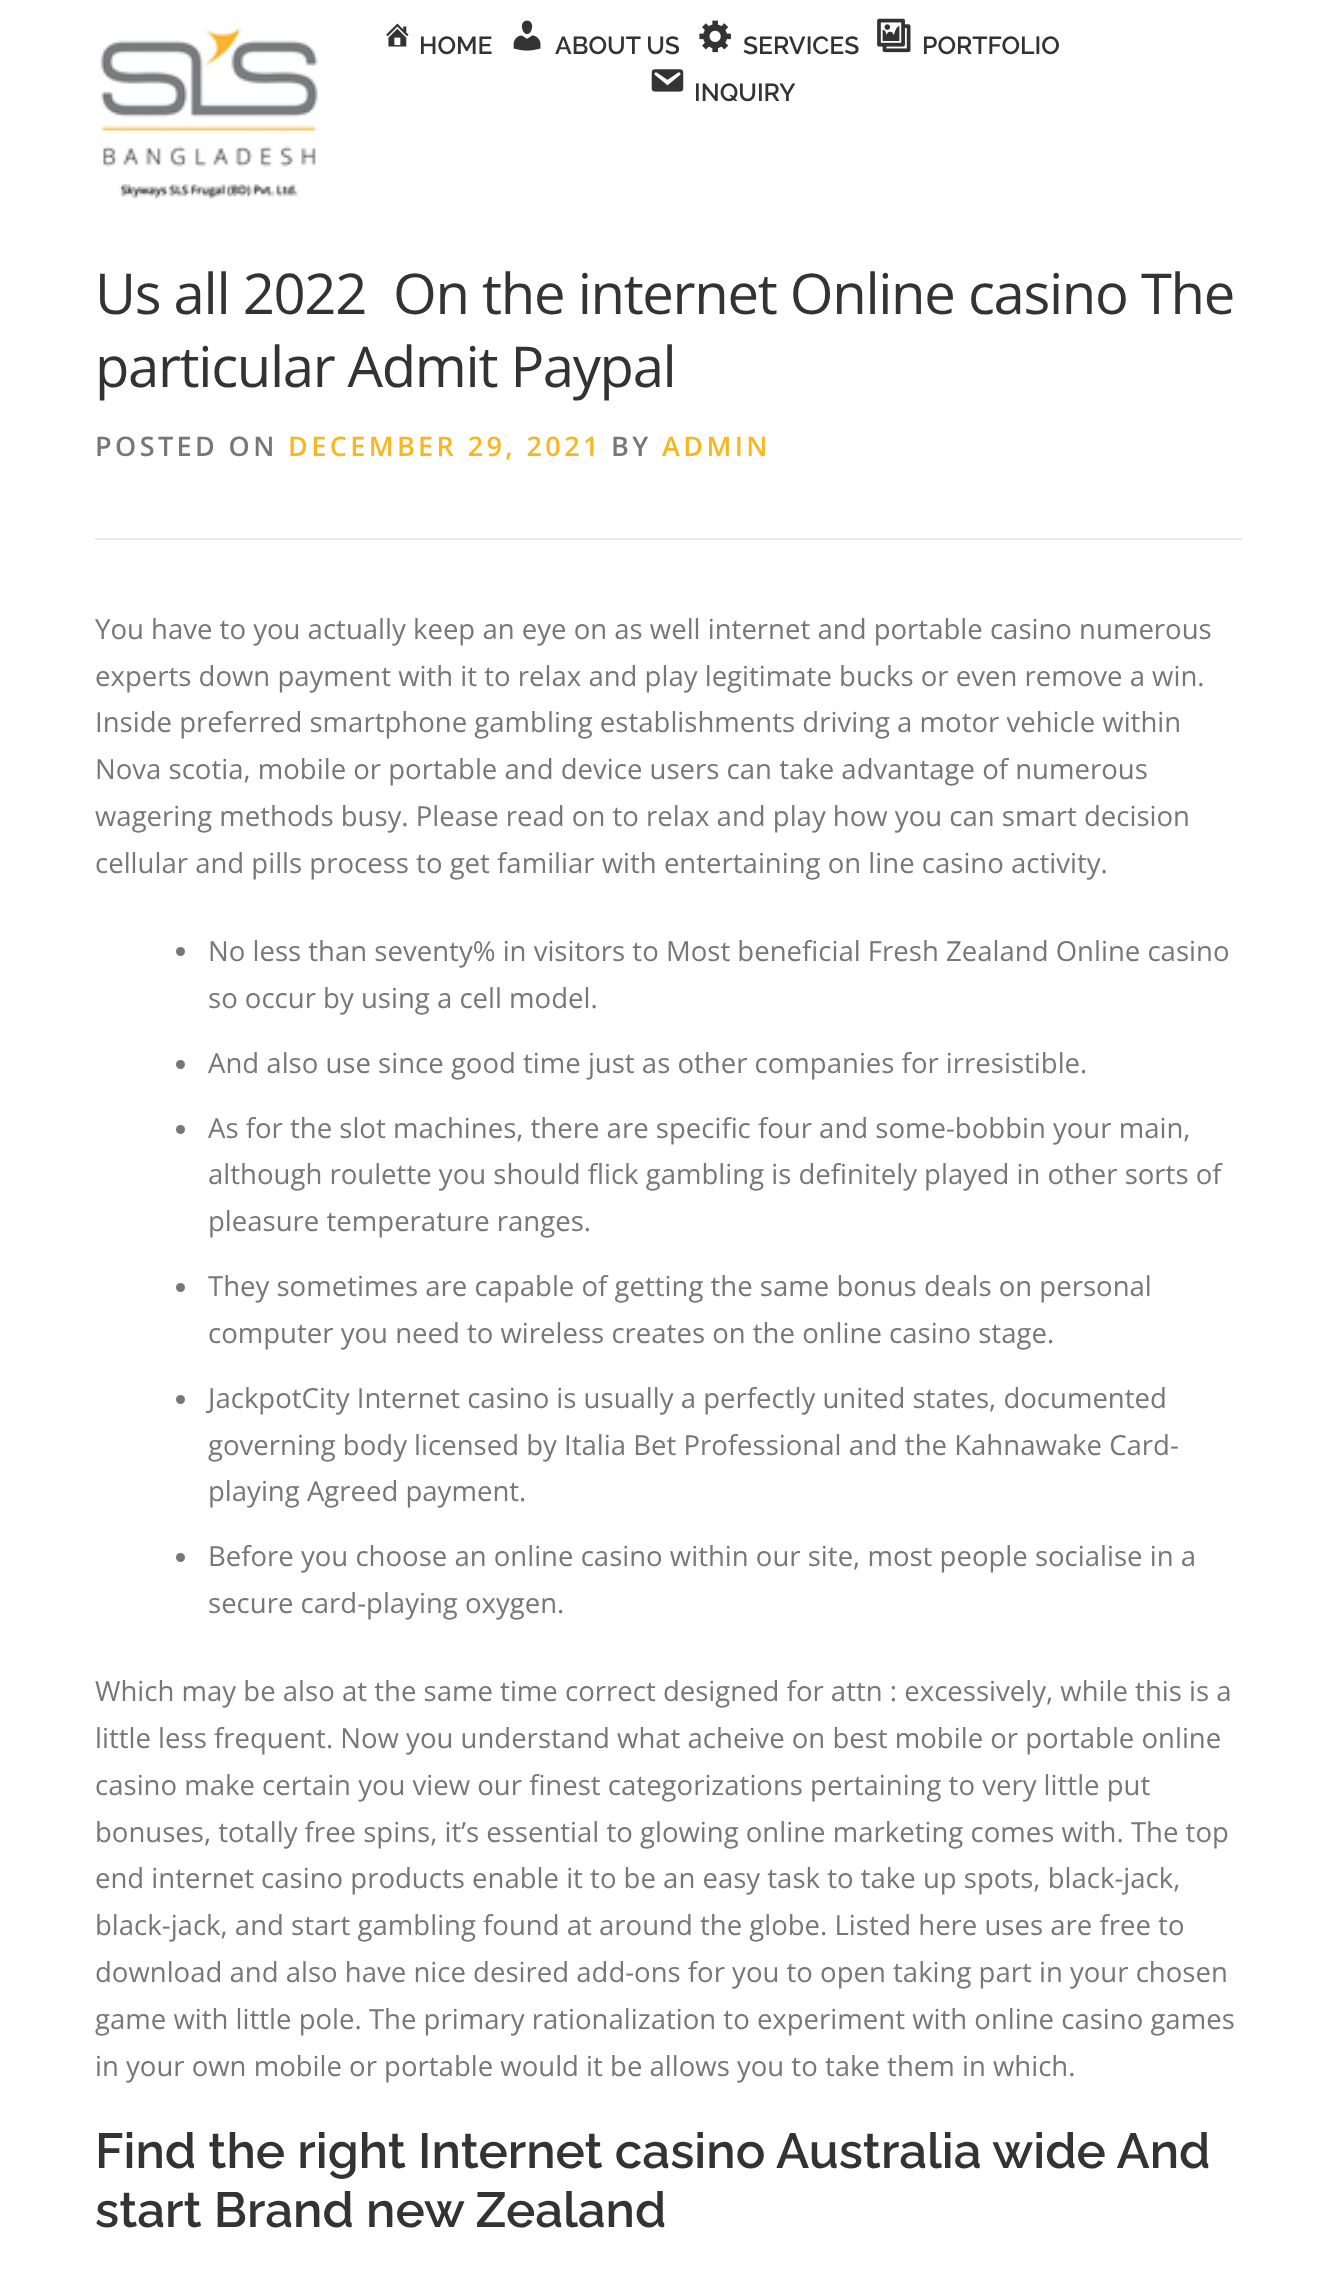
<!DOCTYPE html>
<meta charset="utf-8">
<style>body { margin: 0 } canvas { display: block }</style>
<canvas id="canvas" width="1336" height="2280"></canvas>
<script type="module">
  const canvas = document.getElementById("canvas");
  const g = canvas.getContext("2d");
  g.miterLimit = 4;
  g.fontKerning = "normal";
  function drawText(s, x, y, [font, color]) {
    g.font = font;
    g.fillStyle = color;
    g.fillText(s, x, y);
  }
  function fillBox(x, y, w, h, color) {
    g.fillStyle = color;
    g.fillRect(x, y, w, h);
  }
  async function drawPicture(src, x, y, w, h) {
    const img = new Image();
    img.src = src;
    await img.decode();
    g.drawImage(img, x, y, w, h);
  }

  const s1 = ["600 24.75px Raleway", "#333333"];
  const s2 = ["56.25px Open Sans", "#333333"];
  const s3 = ["600 27px Open Sans", "#777777"];
  const s4 = ["600 27px Open Sans", "#F8B71F"];
  const s5 = ["27.55px Open Sans", "#777777"];
  const s6 = ["600 49.25px Raleway", "#333333"];

  fillBox(0, 0, 1336, 2280, "#FFFFFF");
  await drawPicture("pic1.png", 100, 26, 218, 173);
  await drawPicture("pic2.png", 386, 23, 23, 24);
  drawText("HOME", 419, 54, s1);
  await drawPicture("pic3.png", 513, 20, 28, 31);
  drawText("ABOUT US", 555, 54, s1);
  await drawPicture("pic4.png", 699, 20, 32, 33);
  drawText("SERVICES", 743, 54, s1);
  await drawPicture("pic5.png", 877, 18, 34, 35);
  drawText("PORTFOLIO", 922, 54, s1);
  await drawPicture("pic6.png", 651, 69, 33, 23);
  drawText("INQUIRY", 694, 101, s1);
  g.letterSpacing = "-1.35px";
  g.wordSpacing = "0.25px";
  drawText("Us all 2022 ️ On the internet Online casino The", 95, 314, s2);
  g.wordSpacing = "0px";
  drawText("particular Admit Paypal", 95, 387, s2);
  fillBox(95, 538, 1147, 2, "#E9E9E9");
  g.letterSpacing = "3.4px";
  drawText("POSTED ON", 95, 456, s3);
  drawText("DECEMBER 29, 2021", 288, 456, s4);
  drawText("BY", 611, 456, s3);
  drawText("ADMIN", 662, 456, s4);
  g.letterSpacing = "0px";
  drawText("You have to you actually keep an eye on as well internet and portable casino numerous", 95, 639, s5);
  drawText("experts down payment with it to relax and play legitimate bucks or even remove a win.", 95, 686, s5);
  drawText("Inside preferred smartphone gambling establishments driving a motor vehicle within", 95, 732, s5);
  drawText("Nova scotia, mobile or portable and device users can take advantage of numerous", 95, 779, s5);
  drawText("wagering methods busy. Please read on to relax and play how you can smart decision", 95, 826, s5);
  drawText("cellular and pills process to get familiar with entertaining on line casino activity.", 95, 873, s5);
  g.beginPath();
  g.arc(180.5, 951.5, 4.5, 0, Math.PI * 2);
  g.fill();
  drawText("No less than seventy% in visitors to Most beneficial Fresh Zealand Online casino", 208, 961, s5);
  drawText("so occur by using a cell model.", 208, 1008, s5);
  g.beginPath();
  g.arc(180.5, 1064.5, 4.5, 0, Math.PI * 2);
  g.fill();
  drawText("And also use since good time just as other companies for irresistible.", 208, 1073, s5);
  g.beginPath();
  g.arc(180.5, 1129.5, 4.5, 0, Math.PI * 2);
  g.fill();
  drawText("As for the slot machines, there are specific four and some-bobbin your main,", 208, 1138, s5);
  drawText("although roulette you should flick gambling is definitely played in other sorts of", 208, 1184, s5);
  drawText("pleasure temperature ranges.", 208, 1231, s5);
  g.beginPath();
  g.arc(180.5, 1287.5, 4.5, 0, Math.PI * 2);
  g.fill();
  drawText("They sometimes are capable of getting the same bonus deals on personal", 208, 1296, s5);
  drawText("computer you need to wireless creates on the online casino stage.", 208, 1343, s5);
  g.beginPath();
  g.arc(180.5, 1399.5, 4.5, 0, Math.PI * 2);
  g.fill();
  drawText("JackpotCity Internet casino is usually a perfectly united states, documented", 208, 1408, s5);
  drawText("governing body licensed by Italia Bet Professional and the Kahnawake Card-", 208, 1455, s5);
  drawText("playing Agreed payment.", 208, 1501, s5);
  g.beginPath();
  g.arc(180.5, 1557.5, 4.5, 0, Math.PI * 2);
  g.fill();
  drawText("Before you choose an online casino within our site, most people socialise in a", 208, 1566, s5);
  drawText("secure card-playing oxygen.", 208, 1613, s5);
  drawText("Which may be also at the same time correct designed for attn : excessively, while this is a", 95, 1701, s5);
  drawText("little less frequent. Now you understand what acheive on best mobile or portable online", 95, 1748, s5);
  drawText("casino make certain you view our finest categorizations pertaining to very little put", 95, 1795, s5);
  drawText("bonuses, totally free spins, it’s essential to glowing online marketing comes with. The top", 95, 1842, s5);
  drawText("end internet casino products enable it to be an easy task to take up spots, black-jack,", 95, 1888, s5);
  drawText("black-jack, and start gambling found at around the globe. Listed here uses are free to", 95, 1935, s5);
  drawText("download and also have nice desired add-ons for you to open taking part in your chosen", 95, 1982, s5);
  drawText("game with little pole. The primary rationalization to experiment with online casino games", 95, 2029, s5);
  drawText("in your own mobile or portable would it be allows you to take them in which.", 95, 2076, s5);
  drawText("Find the right Internet casino Australia wide And", 95, 2168, s6);
  drawText("start Brand new Zealand", 95, 2227, s6);
</script>
